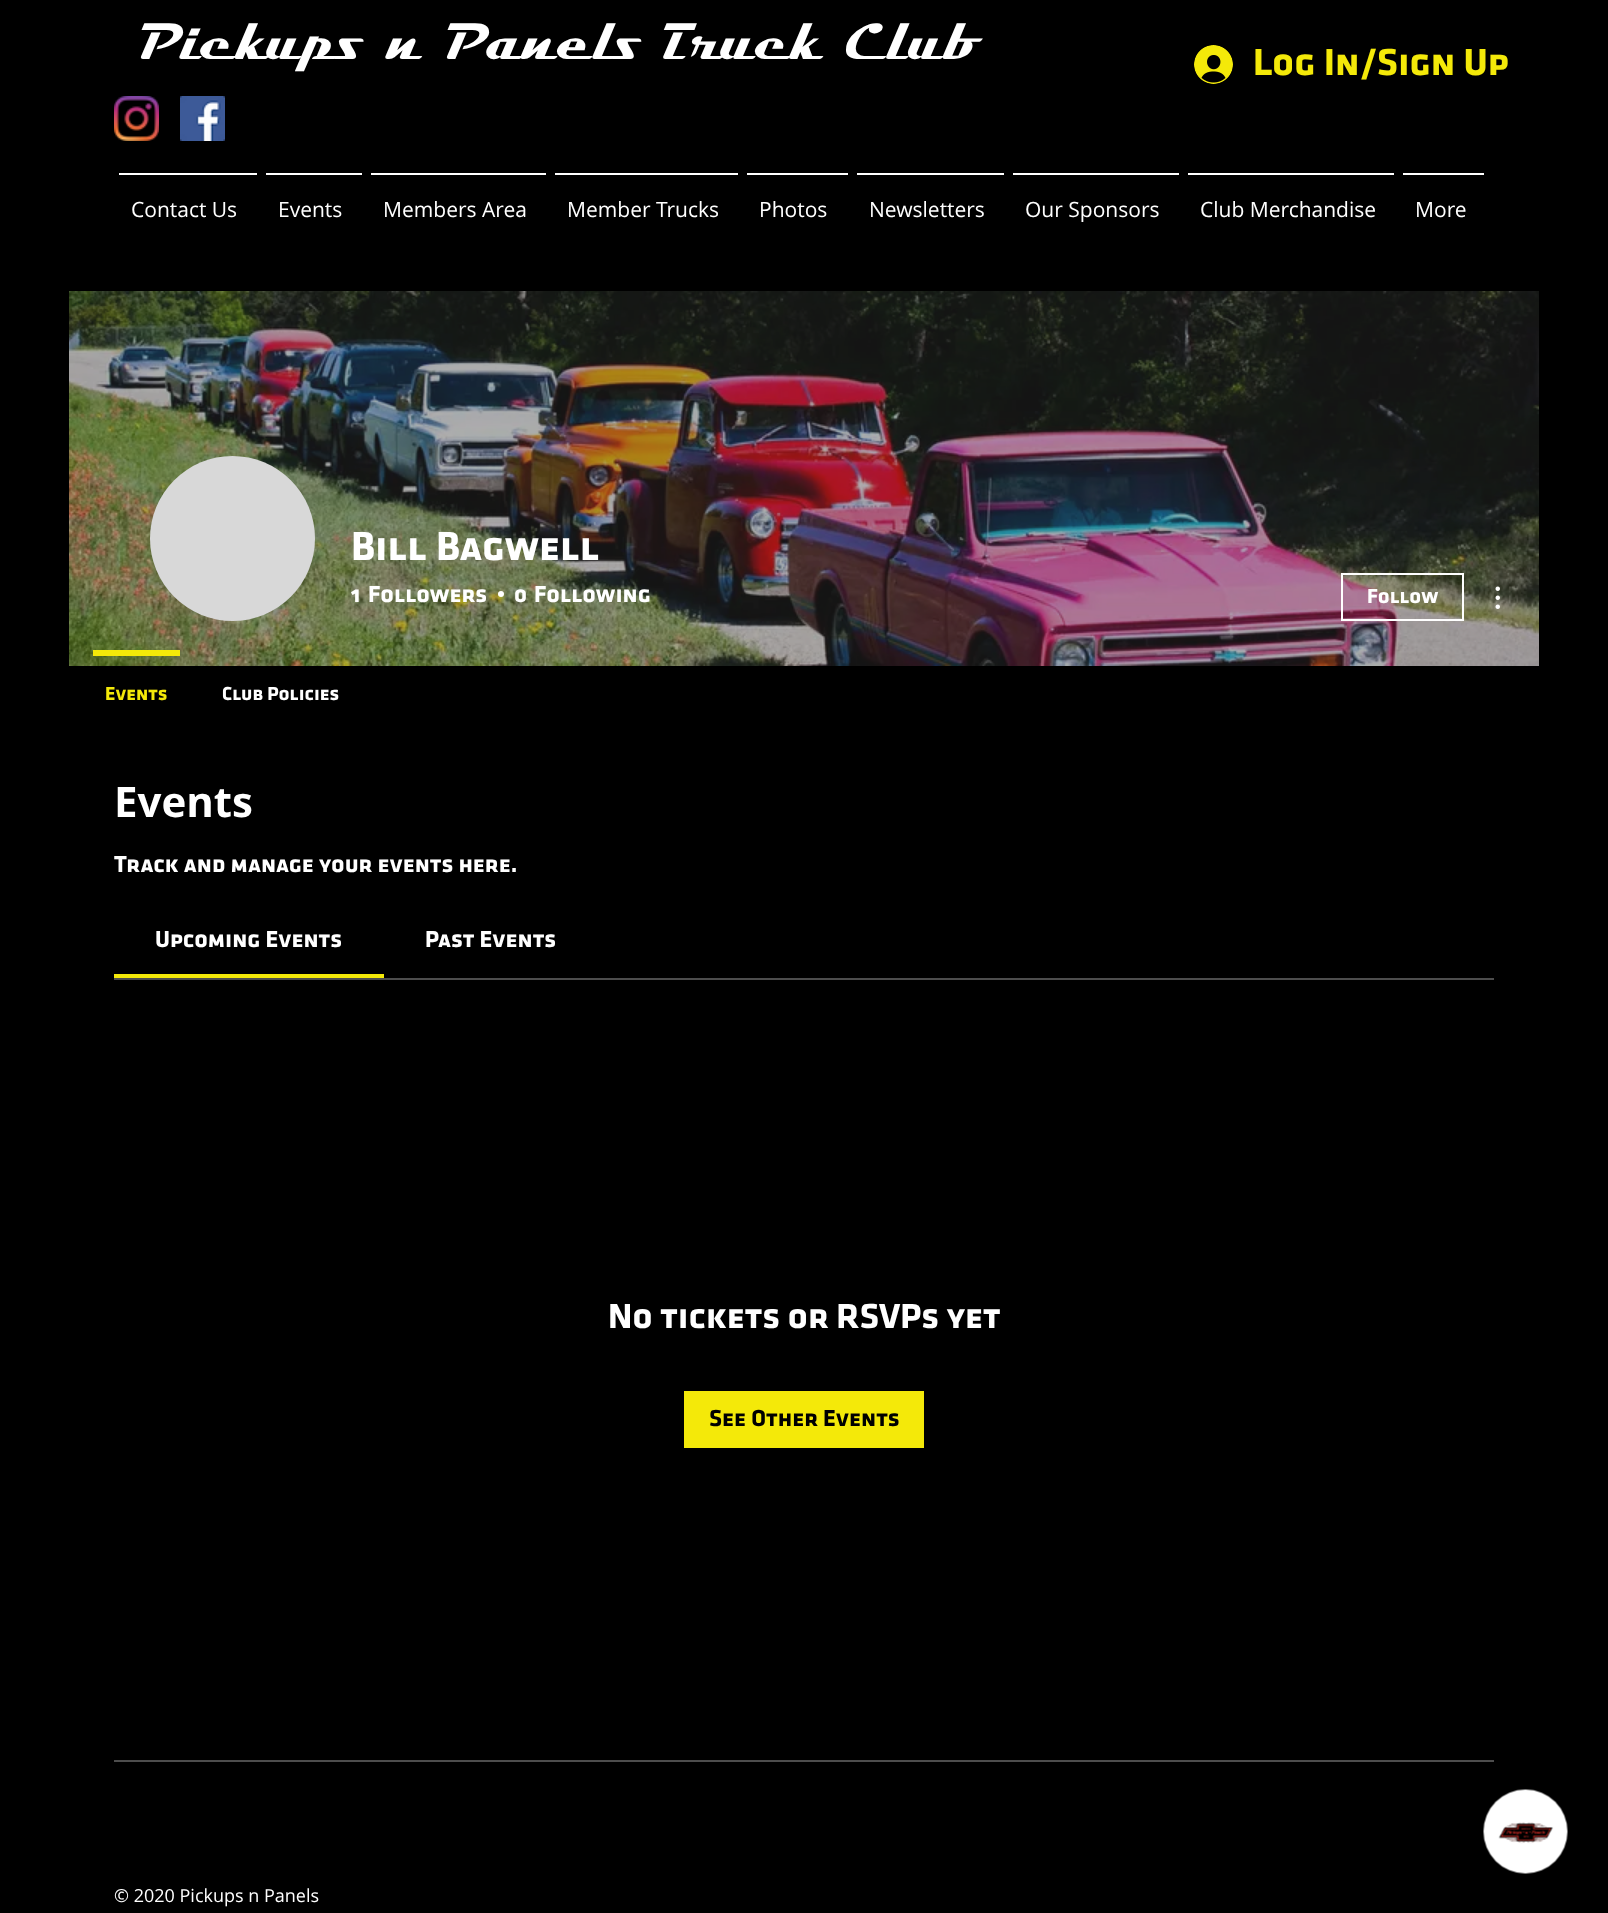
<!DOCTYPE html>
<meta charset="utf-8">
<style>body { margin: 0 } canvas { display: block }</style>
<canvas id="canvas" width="1608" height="1913"></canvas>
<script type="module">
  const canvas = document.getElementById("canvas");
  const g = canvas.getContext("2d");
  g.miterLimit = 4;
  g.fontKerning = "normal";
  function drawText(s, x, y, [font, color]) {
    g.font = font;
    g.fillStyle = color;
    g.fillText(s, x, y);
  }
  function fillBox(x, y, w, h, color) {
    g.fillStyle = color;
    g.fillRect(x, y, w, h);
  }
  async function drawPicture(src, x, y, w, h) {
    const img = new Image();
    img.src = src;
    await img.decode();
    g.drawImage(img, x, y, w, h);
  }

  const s1 = ["51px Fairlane", "#FFFFFF"];
  const s2 = ["bold 39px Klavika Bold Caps", "#F4E909"];
  const s3 = ["21px Open Sans", "#FFFFFF"];
  const s4 = ["bold 42px Klavika Bold Caps", "#FFFFFF"];
  const s5 = ["bold 24px Klavika Bold Caps", "#FFFFFF"];
  const s6 = ["bold 21px Klavika Bold Caps", "#FFFFFF"];
  const s7 = ["bold 19.5px Klavika Bold Caps", "#F4E909"];
  const s8 = ["bold 19.5px Klavika Bold Caps", "#FFFFFF"];
  const s9 = ["bold 42px Open Sans", "#FFFFFF"];
  const s10 = ["bold 36px Klavika Bold Caps", "#FFFFFF"];
  const s11 = ["bold 24px Klavika Bold Caps", "#000000"];
  const s12 = ["18px Open Sans", "#FFFFFF"];

  fillBox(0, 0, 1608, 1913, "#000000");
  drawText("Pickups n Panels Truck Club", 141, 59, s1);
  await drawPicture("pic1.png", 1194, 45, 39, 39);
  drawText("Log In/Sign Up", 1253, 75, s2);
  await drawPicture("pic2.png", 114, 96, 45, 45);
  await drawPicture("pic3.png", 180, 96, 45, 45);
  fillBox(119, 173, 138, 2, "#FFFFFF");
  drawText("Contact Us", 131, 217, s3);
  fillBox(266, 173, 96, 2, "#FFFFFF");
  drawText("Events", 278, 217, s3);
  fillBox(371, 173, 175, 2, "#FFFFFF");
  drawText("Members Area", 383, 217, s3);
  fillBox(555, 173, 183, 2, "#FFFFFF");
  drawText("Member Trucks", 567, 217, s3);
  fillBox(747, 173, 101, 2, "#FFFFFF");
  drawText("Photos", 759, 217, s3);
  fillBox(857, 173, 147, 2, "#FFFFFF");
  drawText("Newsletters", 869, 217, s3);
  fillBox(1013, 173, 166, 2, "#FFFFFF");
  drawText("Our Sponsors", 1025, 217, s3);
  fillBox(1188, 173, 206, 2, "#FFFFFF");
  drawText("Club Merchandise", 1200, 217, s3);
  fillBox(1403, 173, 81, 2, "#FFFFFF");
  drawText("More", 1415, 217, s3);
  fillBox(69, 291, 1470, 375, "#333333");
  await drawPicture("pic4.png", 69, 291, 1470, 375);
  g.fillStyle = "#D8D8D8";
  g.beginPath();
  g.arc(232.5, 538.5, 82.5, 0, Math.PI * 2);
  g.fill();
  drawText("Bill Bagwell", 351, 560, s4);
  drawText("1", 351, 602, s5);
  drawText("Followers", 368, 602, s5);
  g.beginPath();
  g.arc(501, 594, 3, 0, Math.PI * 2);
  g.fill();
  drawText("0", 514, 602, s5);
  drawText("Following", 534, 602, s5);
  g.strokeStyle = "#FFFFFF";
  g.lineWidth = 2;
  g.strokeRect(1342, 574, 121, 46);
  drawText("Follow", 1367, 603, s6);
  await drawPicture("pic5.png", 1495, 586, 5, 23);
  fillBox(93, 650, 87, 6, "#F4E909");
  drawText("Events", 105, 700, s7);
  drawText("Club Policies", 222, 700, s8);
  drawText("Events", 114, 817, s9);
  drawText("Track and manage your events here.", 114, 872, s5);
  fillBox(114, 974, 270, 4, "#F4E909");
  drawText("Upcoming Events", 155, 947, s5);
  drawText("Past Events", 425, 947, s5);
  fillBox(114, 978, 1380, 2, "#4D4D4D");
  drawText("No tickets or RSVPs yet", 608, 1328, s10);
  fillBox(684, 1391, 240, 57, "#F4E909");
  drawText("See Other Events", 709, 1426, s11);
  fillBox(114, 1760, 1380, 2, "#4D4D4D");
  drawText("© 2020 Pickups n Panels", 114, 1902, s12);
  await drawPicture("pic6.png", 1483, 1789, 85, 85);
</script>
